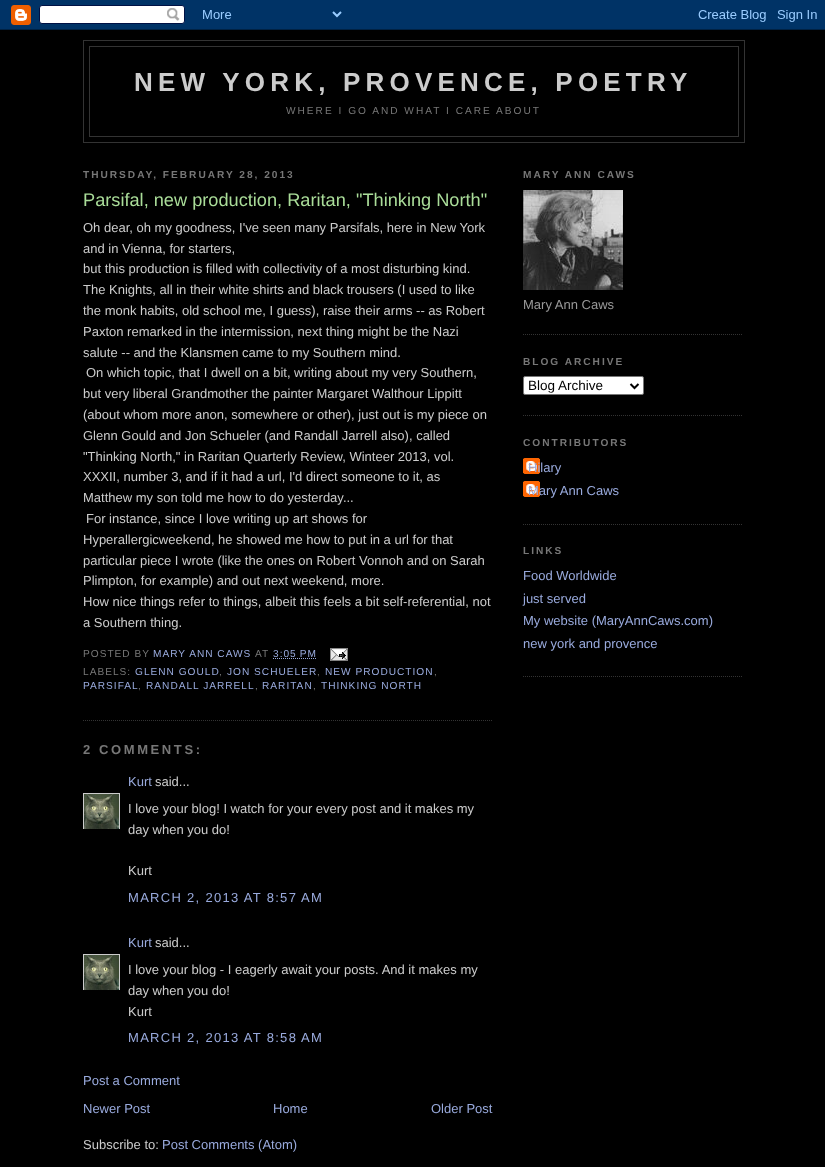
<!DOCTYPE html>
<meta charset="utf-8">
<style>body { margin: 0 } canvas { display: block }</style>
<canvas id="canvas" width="825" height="1167"></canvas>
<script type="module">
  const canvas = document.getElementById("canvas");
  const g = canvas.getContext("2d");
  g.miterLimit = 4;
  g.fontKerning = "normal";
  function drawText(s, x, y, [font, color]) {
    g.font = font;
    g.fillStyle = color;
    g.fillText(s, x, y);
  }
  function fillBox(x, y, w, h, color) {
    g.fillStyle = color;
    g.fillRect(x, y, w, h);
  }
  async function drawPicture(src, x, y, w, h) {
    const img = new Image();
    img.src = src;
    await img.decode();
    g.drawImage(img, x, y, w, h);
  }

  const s1 = ["bold 26px Liberation Sans", "#CCCCCC"];
  const s2 = ["10.15px Liberation Sans", "#777777"];
  const s3 = ["bold 10.15px Liberation Sans", "#777777"];
  const s4 = ["18.2px Liberation Sans", "#AADD99"];
  const s5 = ["13px Liberation Sans", "#CCCCCC"];
  const s6 = ["10.15px Liberation Sans", "#99AADD"];
  const s7 = ["bold 13px Liberation Sans", "#777777"];
  const s8 = ["13px Liberation Sans", "#99AADD"];
  const s9 = ["13px Liberation Sans", "#999999"];
  const s10 = ["13.5px Liberation Sans", "#000000"];

  fillBox(0, 0, 825, 1167, "#000000");
  await drawPicture("pic1.png", 0, 0, 825, 30);
  g.strokeStyle = "#333333";
  g.strokeRect(83.5, 40.5, 661, 102);
  g.strokeRect(89.5, 46.5, 649, 90);
  g.letterSpacing = "5.2px";
  drawText("NEW YORK, PROVENCE, POETRY", 134, 91, s1);
  g.letterSpacing = "2px";
  drawText("WHERE I GO AND WHAT I CARE ABOUT", 286, 114, s2);
  drawText("THURSDAY, FEBRUARY 28, 2013", 83, 178, s3);
  g.beginPath();
  g.moveTo(83, 720.5);
  g.lineTo(493, 720.5);
  g.setLineDash([1, 1]);
  g.stroke();
  g.letterSpacing = "0px";
  drawText("Parsifal, new production, Raritan, \"Thinking North\"", 83, 206, s4);
  drawText("Oh dear, oh my goodness, I've seen many Parsifals, here in New York", 83, 232, s5);
  drawText("and in Vienna, for starters,", 83, 253, s5);
  drawText("but this production is filled with collectivity of a most disturbing kind.", 83, 273, s5);
  drawText("The Knights, all in their white shirts and black trousers (I used to like", 83, 294, s5);
  drawText("the monk habits, old school me, I guess), raise their arms -- as Robert", 83, 315, s5);
  drawText("Paxton remarked in the intermission, next thing might be the Nazi", 83, 336, s5);
  drawText("salute -- and the Klansmen came to my Southern mind.", 83, 357, s5);
  drawText("On which topic, that I dwell on a bit, writing about my very Southern,", 86, 377, s5);
  drawText("but very liberal Grandmother the painter Margaret Walthour Lippitt", 83, 398, s5);
  drawText("(about whom more anon, somewhere or other), just out is my piece on", 83, 419, s5);
  drawText("Glenn Gould and Jon Schueler (and Randall Jarrell also), called", 83, 440, s5);
  drawText("\"Thinking North,\" in Raritan Quarterly Review, Winteer 2013, vol.", 83, 461, s5);
  drawText("XXXII, number 3, and if it had a url, I'd direct someone to it, as", 83, 481, s5);
  drawText("Matthew my son told me how to do yesterday...", 83, 502, s5);
  drawText("For instance, since I love writing up art shows for", 86, 523, s5);
  drawText("Hyperallergicweekend, he showed me how to put in a url for that", 83, 544, s5);
  drawText("particular piece I wrote (like the ones on Robert Vonnoh and on Sarah", 83, 565, s5);
  drawText("Plimpton, for example) and out next weekend, more.", 83, 585, s5);
  drawText("How nice things refer to things, albeit this feels a bit self-referential, not", 83, 606, s5);
  drawText("a Southern thing.", 83, 627, s5);
  g.letterSpacing = "1px";
  drawText("POSTED BY", 83, 657, s2);
  drawText("MARY ANN CAWS", 153, 657, s6);
  drawText("AT", 255, 657, s2);
  drawText("3:05 PM", 273, 657, s6);
  g.beginPath();
  g.moveTo(273, 658.5);
  g.lineTo(317, 658.5);
  g.strokeStyle = "#99AADD";
  g.stroke();
  await drawPicture("pic2.png", 330, 648, 18, 13);
  drawText("LABELS:", 83, 675, s2);
  drawText("GLENN GOULD", 135, 675, s6);
  drawText(",", 219, 675, s2);
  drawText("JON SCHUELER", 227, 675, s6);
  drawText(",", 317, 675, s2);
  drawText("NEW PRODUCTION", 325, 675, s6);
  drawText(",", 434, 675, s2);
  drawText("PARSIFAL", 83, 689, s6);
  drawText(",", 138, 689, s2);
  drawText("RANDALL JARRELL", 146, 689, s6);
  drawText(",", 255, 689, s2);
  drawText("RARITAN", 262, 689, s6);
  drawText(",", 313, 689, s2);
  drawText("THINKING NORTH", 321, 689, s6);
  g.letterSpacing = "2.6px";
  drawText("2 COMMENTS:", 83, 754, s7);
  g.letterSpacing = "0px";
  drawText("Kurt", 128, 786, s8);
  drawText("said...", 155, 786, s5);
  g.save();
  g.beginPath();
  g.rect(83, 793, 37, 36);
  g.clip();
  g.strokeStyle = "#CCCCCC";
  g.setLineDash([]);
  g.strokeRect(83.5, 793.5, 36, 36);
  g.restore();
  await drawPicture("pic3.png", 84, 794, 35, 35);
  drawText("I love your blog! I watch for your every post and it makes my", 128, 813, s5);
  drawText("day when you do!", 128, 834, s5);
  drawText("Kurt", 128, 875, s5);
  g.letterSpacing = "1.3px";
  drawText("MARCH 2, 2013 AT 8:57 AM", 128, 902, s8);
  g.letterSpacing = "0px";
  drawText("Kurt", 128, 947, s8);
  drawText("said...", 155, 947, s5);
  g.save();
  g.beginPath();
  g.rect(83, 954, 37, 36);
  g.clip();
  g.strokeStyle = "#CCCCCC";
  g.setLineDash([]);
  g.strokeRect(83.5, 954.5, 36, 36);
  g.restore();
  await drawPicture("pic4.png", 84, 955, 35, 35);
  drawText("I love your blog - I eagerly await your posts. And it makes my", 128, 974, s5);
  drawText("day when you do!", 128, 995, s5);
  drawText("Kurt", 128, 1016, s5);
  g.letterSpacing = "1.3px";
  drawText("MARCH 2, 2013 AT 8:58 AM", 128, 1042, s8);
  g.letterSpacing = "0px";
  drawText("Post a Comment", 83, 1085, s8);
  drawText("Newer Post", 83, 1113, s8);
  drawText("Home", 273, 1113, s8);
  drawText("Older Post", 431, 1113, s8);
  drawText("Subscribe to:", 83, 1149, s5);
  drawText("Post Comments (Atom)", 162, 1149, s8);
  g.beginPath();
  g.moveTo(523, 334.5);
  g.lineTo(743, 334.5);
  g.strokeStyle = "#333333";
  g.stroke();
  g.letterSpacing = "2px";
  drawText("MARY ANN CAWS", 523, 178, s3);
  await drawPicture("pic5.png", 523, 190, 100, 100);
  g.letterSpacing = "0px";
  drawText("Mary Ann Caws", 523, 309, s9);
  g.beginPath();
  g.moveTo(523, 415.5);
  g.lineTo(743, 415.5);
  g.stroke();
  g.letterSpacing = "2px";
  drawText("BLOG ARCHIVE", 523, 365, s3);
  g.fillStyle = "#FFFFFF";
  g.beginPath();
  g.roundRect(523.5, 376.5, 120, 18, 1.5);
  g.fill();
  g.strokeStyle = "#767676";
  g.setLineDash([]);
  g.stroke();
  g.beginPath();
  g.moveTo(630.5, 384);
  g.lineTo(634.5, 388);
  g.lineTo(638.5, 384);
  g.strokeStyle = "#000000";
  g.lineWidth = 2;
  g.stroke();
  g.letterSpacing = "0px";
  drawText("Blog Archive", 528, 390, s10);
  g.beginPath();
  g.moveTo(523, 524.5);
  g.lineTo(743, 524.5);
  g.strokeStyle = "#333333";
  g.lineWidth = 1;
  g.setLineDash([1, 1]);
  g.stroke();
  g.letterSpacing = "2px";
  drawText("CONTRIBUTORS", 523, 446, s3);
  await drawPicture("pic6.png", 523, 458, 17, 16);
  g.letterSpacing = "0px";
  drawText("Hilary", 528, 472, s8);
  await drawPicture("pic6.png", 523, 481, 17, 16);
  drawText("Mary Ann Caws", 528, 495, s8);
  g.beginPath();
  g.moveTo(523, 676.5);
  g.lineTo(743, 676.5);
  g.stroke();
  g.letterSpacing = "2px";
  drawText("LINKS", 523, 554, s3);
  g.letterSpacing = "0px";
  drawText("Food Worldwide", 523, 580, s8);
  drawText("just served", 523, 603, s8);
  drawText("My website (MaryAnnCaws.com)", 523, 625, s8);
  drawText("new york and provence", 523, 648, s8);
</script>
